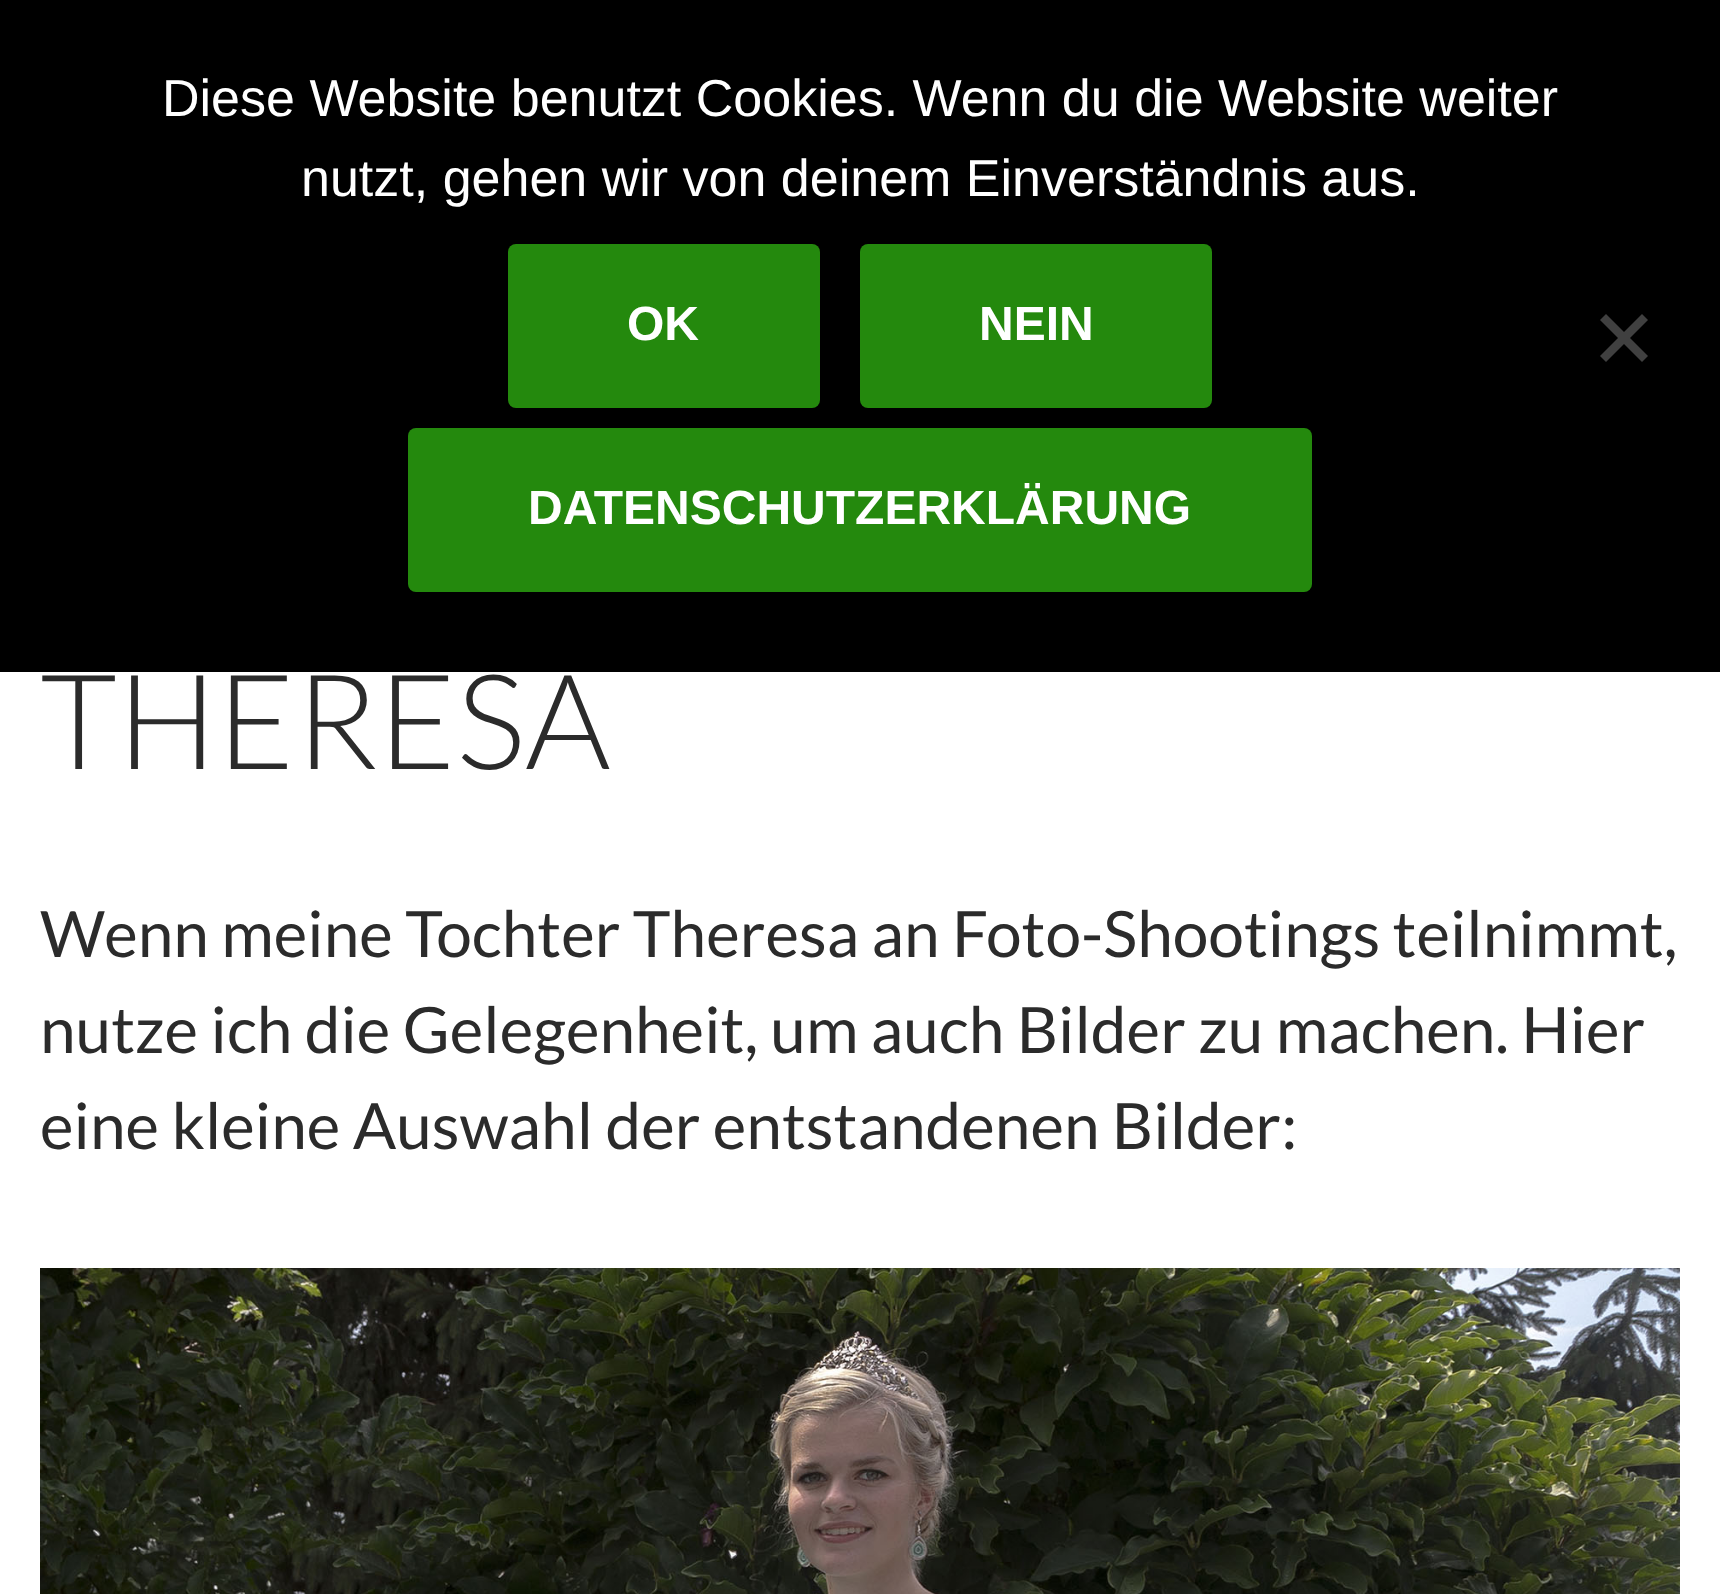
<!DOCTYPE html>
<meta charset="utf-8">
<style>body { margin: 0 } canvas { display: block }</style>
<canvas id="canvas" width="1720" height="1594"></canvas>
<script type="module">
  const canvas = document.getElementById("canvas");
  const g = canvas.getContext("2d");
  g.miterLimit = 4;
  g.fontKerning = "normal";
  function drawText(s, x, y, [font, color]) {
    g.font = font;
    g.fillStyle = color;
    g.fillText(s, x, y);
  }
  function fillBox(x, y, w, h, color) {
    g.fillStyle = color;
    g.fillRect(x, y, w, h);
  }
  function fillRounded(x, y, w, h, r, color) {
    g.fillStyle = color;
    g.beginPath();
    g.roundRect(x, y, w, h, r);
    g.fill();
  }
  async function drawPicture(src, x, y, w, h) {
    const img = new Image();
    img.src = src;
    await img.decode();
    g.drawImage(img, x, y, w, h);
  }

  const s1 = ["52px Liberation Sans", "#FFFFFF"];
  const s2 = ["bold 48px Liberation Sans", "#FFFFFF"];
  const s3 = ["300 132px Lato", "#2B2B2B"];
  const s4 = ["64px Lato", "#2B2B2B"];

  fillBox(0, 0, 1720, 1594, "#FFFFFF");
  fillBox(0, 0, 1720, 672, "#000000");
  drawText("Diese Website benutzt Cookies. Wenn du die Website weiter", 162, 116, s1);
  drawText("nutzt, gehen wir von deinem Einverständnis aus.", 301, 196, s1);
  fillRounded(508, 244, 312, 164, 8, "#24890D");
  drawText("OK", 627, 340, s2);
  fillRounded(860, 244, 352, 164, 8, "#24890D");
  drawText("NEIN", 979, 340, s2);
  fillRounded(408, 428, 904, 164, 8, "#24890D");
  drawText("DATENSCHUTZERKLÄRUNG", 528, 524, s2);
  g.fillStyle = "#404040";
  g.beginPath();
  g.moveTo(1642, 314);
  g.lineTo(1648, 320);
  g.lineTo(1606, 362);
  g.lineTo(1600, 356);
  g.closePath();
  g.fill();
  g.beginPath();
  g.moveTo(1600, 320);
  g.lineTo(1606, 314);
  g.lineTo(1648, 356);
  g.lineTo(1642, 362);
  g.closePath();
  g.fill();
  drawText("THERESA", 40, 769, s3);
  drawText("Wenn meine Tochter Theresa an Foto-Shootings teilnimmt,", 40, 957, s4);
  drawText("nutze ich die Gelegenheit, um auch Bilder zu machen. Hier", 40, 1053, s4);
  drawText("eine kleine Auswahl der entstandenen Bilder:", 40, 1149, s4);
  await drawPicture("pic1.png", 40, 1268, 1640, 326);
</script>
